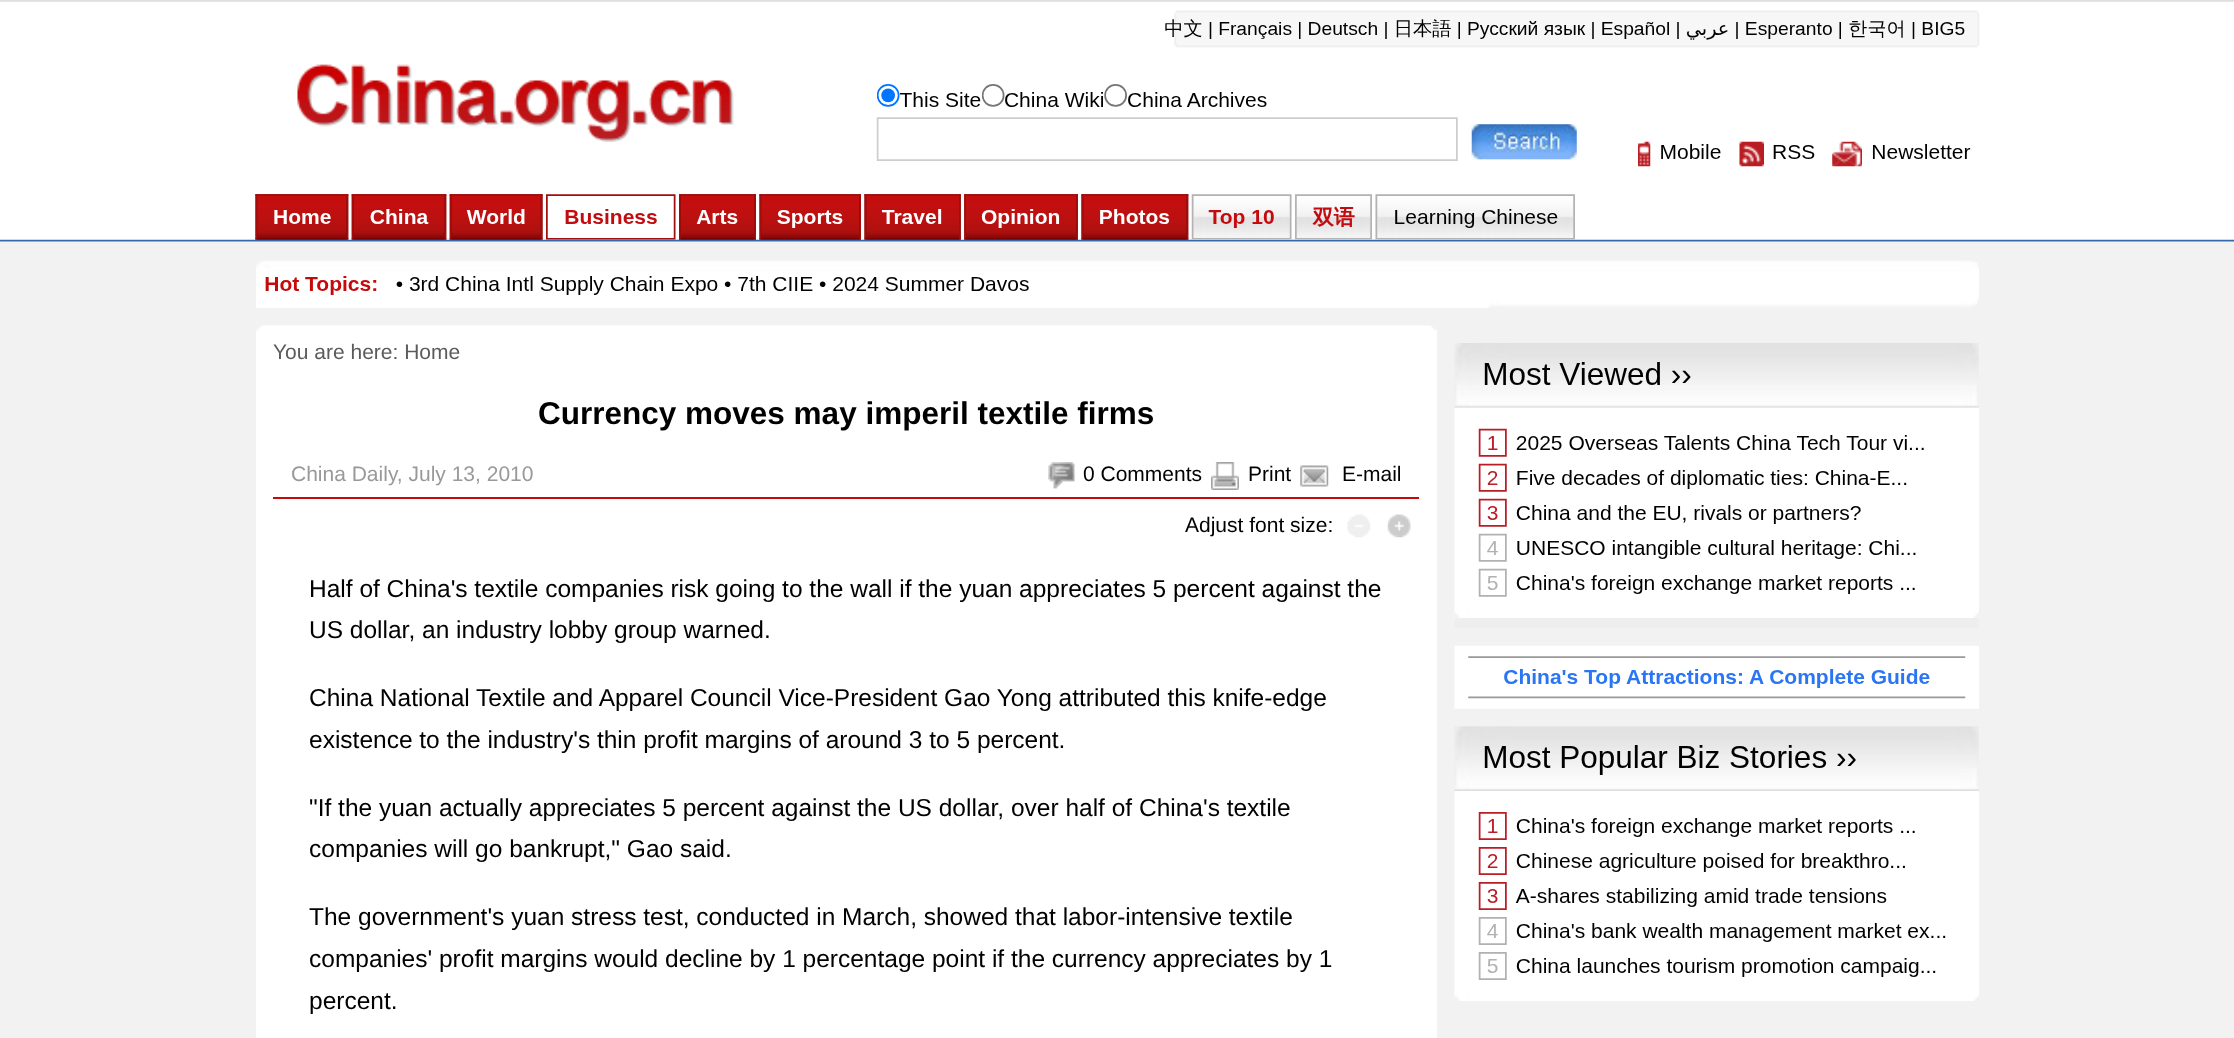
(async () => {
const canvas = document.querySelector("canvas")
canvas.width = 2234
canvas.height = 1038
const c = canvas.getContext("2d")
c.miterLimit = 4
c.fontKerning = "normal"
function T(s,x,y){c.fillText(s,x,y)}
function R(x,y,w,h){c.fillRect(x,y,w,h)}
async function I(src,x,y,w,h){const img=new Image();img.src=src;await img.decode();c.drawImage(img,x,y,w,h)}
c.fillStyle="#f2f2f2"
R(0,0,2234,1038)
await I("1.png",0,0,2234,242)
await I("2.png",256,260,1723,48)
c.fillStyle="#fff"
R(256,326,1181,712)
await I("3.png",256,325,1181,6)
c.font="21px Liberation Sans"
c.fillStyle="#5b5b5b"
T("You are here: Home",273,359)
c.font="bold 31.5px Liberation Sans"
c.fillStyle="#000"
T("Currency moves may imperil textile firms",538,424)
c.fillStyle="#c50a0c"
R(273,497,1146,2)
c.font="21px Liberation Sans"
c.fillStyle="#999"
T("China Daily, July 13, 2010",291,481)
await I("4.png",1048,462,27,27)
c.fillStyle="#000"
T("0 Comments",1083,481)
await I("5.png",1211,462,28,28)
T("Print",1248,481)
await I("6.png",1300,465,29,22)
T("E-mail",1342,481)
T("Adjust font size:",1185,532)
await I("7.png",1347,514,24,24)
await I("8.png",1387,514,24,24)
c.font="24.5px Liberation Sans"
T("Half of China's textile companies risk going to the wall if the yuan appreciates 5 percent against the",309,597)
T("US dollar, an industry lobby group warned.",309,638)
T("China National Textile and Apparel Council Vice-President Gao Yong attributed this knife-edge",309,706)
T("existence to the industry's thin profit margins of around 3 to 5 percent.",309,748)
T("\"If the yuan actually appreciates 5 percent against the US dollar, over half of China's textile",309,816)
T("companies will go bankrupt,\" Gao said.",309,857)
T("The government's yuan stress test, conducted in March, showed that labor-intensive textile",309,925)
T("companies' profit margins would decline by 1 percentage point if the currency appreciates by 1",309,967)
T("percent.",309,1009)
await I("9.png",1454,343,525,658)
})()
